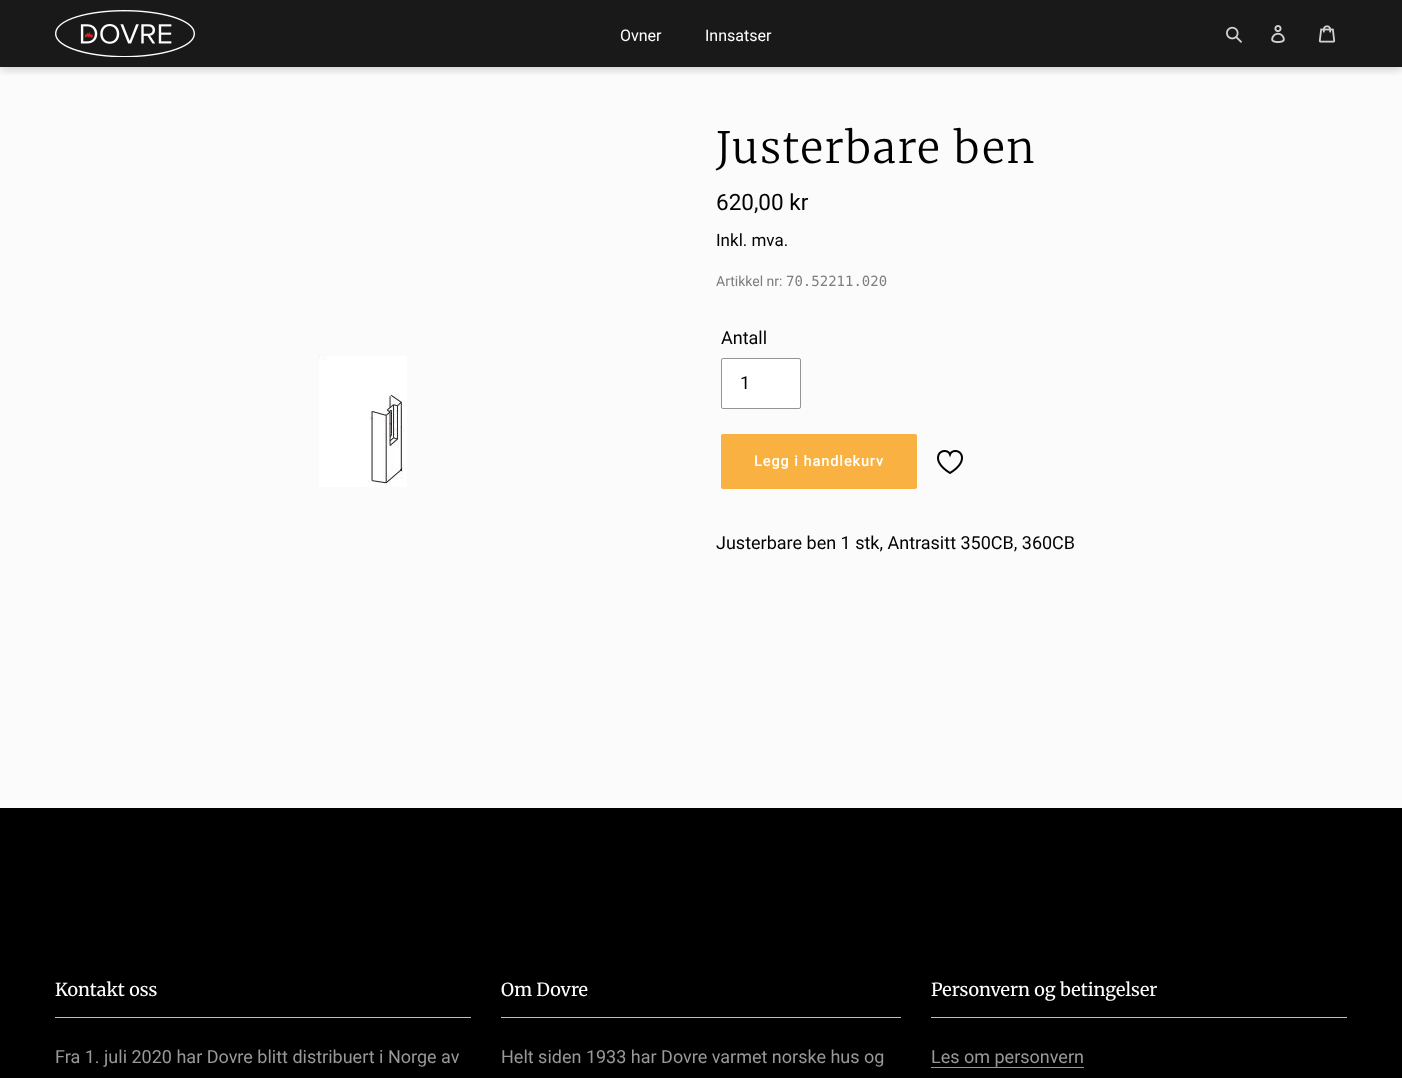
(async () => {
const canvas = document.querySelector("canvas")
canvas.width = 1402
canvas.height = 1078
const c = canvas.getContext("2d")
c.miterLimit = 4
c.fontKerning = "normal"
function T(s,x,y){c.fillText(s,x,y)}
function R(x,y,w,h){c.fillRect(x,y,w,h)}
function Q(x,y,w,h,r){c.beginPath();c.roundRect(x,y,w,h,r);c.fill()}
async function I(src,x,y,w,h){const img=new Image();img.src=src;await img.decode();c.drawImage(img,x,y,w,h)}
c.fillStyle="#fbfbfb"
R(0,0,1402,1078)
c.fillStyle="#191919"
R(0,0,1402,67)
c.save()
c.beginPath()
c.rect(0,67,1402,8)
c.clip()
c.fillStyle="#00000033"
c.filter="blur(5px)"
c.beginPath()
c.rect(0,2,1402,67)
c.fill()
c.filter="none"
c.restore()
await I("1.png",55,10,140,47)
c.font="16px Roboto"
c.fillStyle="#fff"
T("Ovner",620,41)
T("Innsatser",705,41)
await I("2.png",1226,26,16,17)
await I("3.png",1271,25,14,18)
await I("4.png",1318,25,18,18)
await I("5.png",319,356,88,131)
c.letterSpacing="2.1px"
c.font="300 43px Merriweather"
c.fillStyle="#000"
T("Justerbare ben",716,163)
c.letterSpacing="0px"
c.font="22.5px Roboto"
T("620,00 kr",716,210)
c.font="17px Roboto"
T("Inkl. mva.",716,246)
c.font="14px Roboto"
c.fillStyle="#7e7e7e"
T("Artikkel nr:",716,286)
c.font="14px DejaVu Sans Mono"
T("70.52211.020",786,286)
c.font="18px Roboto"
c.fillStyle="#000"
T("Antall",721,344)
c.fillStyle="#fff"
c.beginPath()
c.roundRect(721.5,358.5,79,50,1.5)
c.fill()
c.strokeStyle="#949494"
c.stroke()
c.fillStyle="#000"
T("1",740,389)
c.fillStyle="#f9b241"
Q(721,434,196,55,2)
c.letterSpacing="1.1px"
c.font="bold 14.25px Roboto"
c.fillStyle="#fff"
T("Legg i handlekurv",754,466)
await I("6.png",937,450,26,25)
c.letterSpacing="0px"
c.font="18px Roboto"
c.fillStyle="#000"
T("Justerbare ben 1 stk, Antrasitt 350CB, 360CB",716,549)
R(0,808,1402,270)
c.fillStyle="#bfbdc9"
R(55,1017,416,1)
c.font="18px Merriweather"
c.fillStyle="#fff"
T("Kontakt oss",55,996)
c.font="18px Roboto"
c.fillStyle="#999"
T("Fra 1. juli 2020 har Dovre blitt distribuert i Norge av",55,1063)
c.fillStyle="#bfbdc9"
R(501,1017,400,1)
c.font="18px Merriweather"
c.fillStyle="#fff"
T("Om Dovre",501,996)
c.font="18px Roboto"
c.fillStyle="#999"
T("Helt siden 1933 har Dovre varmet norske hus og",501,1063)
c.fillStyle="#bfbdc9"
R(931,1017,416,1)
c.font="18px Merriweather"
c.fillStyle="#fff"
T("Personvern og betingelser",931,996)
c.font="18px Roboto"
c.fillStyle="#999"
T("Les om personvern",931,1063)
R(931,1067,153,1)
})()
